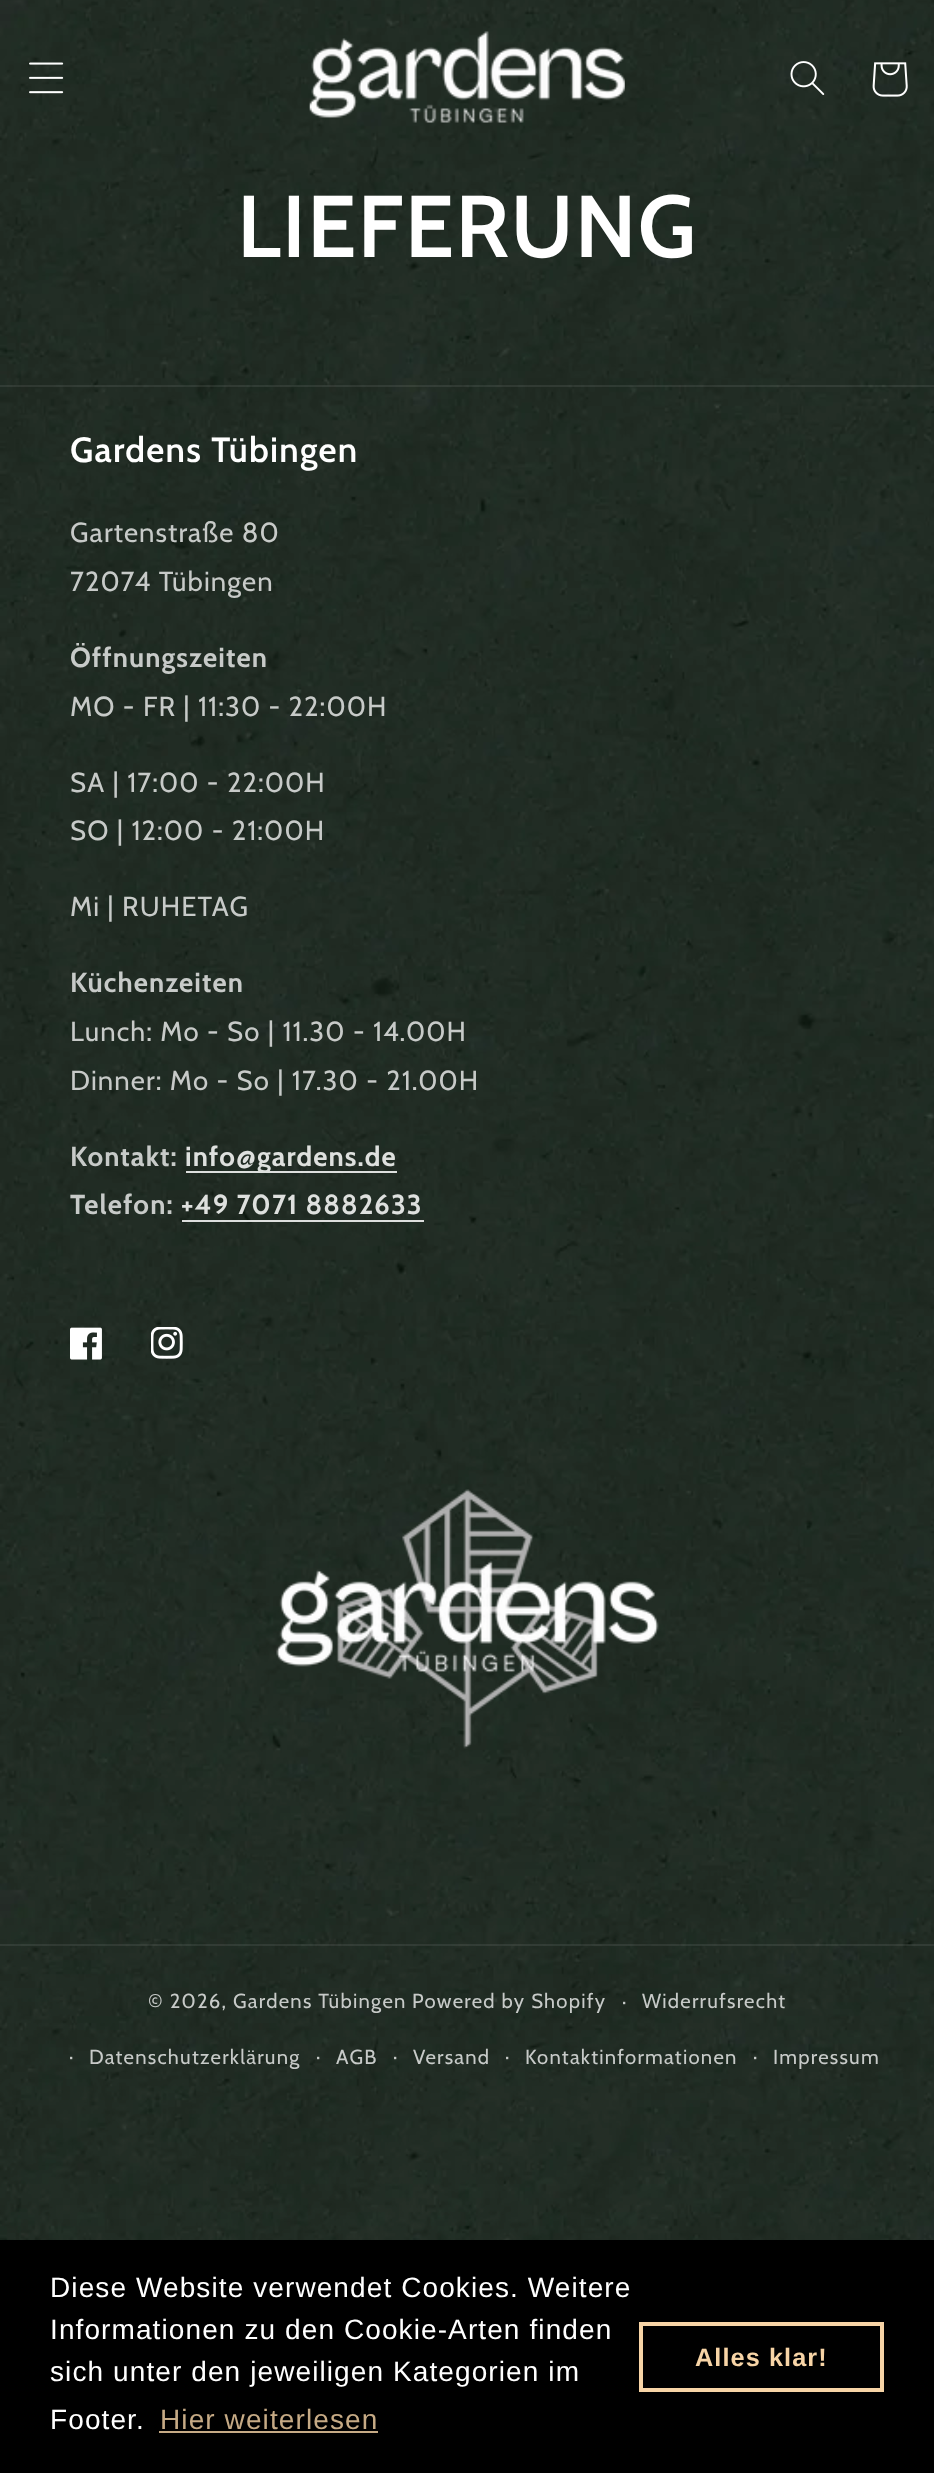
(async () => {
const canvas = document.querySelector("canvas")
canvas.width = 934
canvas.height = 2473
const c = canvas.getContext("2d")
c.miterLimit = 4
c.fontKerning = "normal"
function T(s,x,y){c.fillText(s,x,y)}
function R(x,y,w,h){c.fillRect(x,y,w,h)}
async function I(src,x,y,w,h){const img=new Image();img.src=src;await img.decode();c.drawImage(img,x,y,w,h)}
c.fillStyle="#fff"
R(0,0,934,2473)
await I("1.png",0,0,934,2240)
await I("2.png",29,62,35,32)
await I("3.png",309,31,316,92)
await I("4.png",790,61,35,34)
await I("5.png",872,62,36,35)
c.letterSpacing="1.25px"
c.font="600 87.5px Cabin"
T("LIEFERUNG",237,257)
c.fillStyle="#ffffff14"
R(0,385,934,2)
c.font="600 35px Cabin"
c.fillStyle="#fff"
T("Gardens Tübingen",70,462)
c.letterSpacing="1.1px"
c.font="27.5px Cabin"
c.fillStyle="#c7cac8"
T("Gartenstraße 80",70,542)
T("72074 Tübingen",70,591)
c.font="bold 27.5px Cabin"
T("Öffnungszeiten",70,667)
c.font="27.5px Cabin"
T("MO - FR | 11:30 - 22:00H",70,716)
T("SA | 17:00 - 22:00H",70,792)
T("SO | 12:00 - 21:00H",70,840)
T("Mi | RUHETAG",70,916)
c.font="bold 27.5px Cabin"
T("Küchenzeiten",70,992)
c.font="27.5px Cabin"
T("Lunch: Mo - So | 11.30 - 14.00H",70,1041)
T("Dinner: Mo - So | 17.30 - 21.00H",70,1090)
c.font="bold 27.5px Cabin"
T("Kontakt:",70,1166)
c.fillStyle="#ffffffd9"
R(186,1171,211,2)
c.fillStyle="#dee0de"
T("info@gardens.de",185,1166)
c.fillStyle="#c7cac8"
T("Telefon:",70,1214)
c.fillStyle="#dee0de"
T("+49 7071 8882633",181,1214)
c.fillStyle="#ffffffd9"
R(182,1220,242,2)
await I("6.png",70,1327,32,33)
await I("7.png",151,1327,32,32)
await I("8.png",276,1489,383,260)
c.fillStyle="#ffffff14"
R(0,1944,934,2)
c.letterSpacing="1.25px"
c.font="18px Cabin"
c.fillStyle="#c7cac8"
T("·",622,2008)
c.font="20.25px Cabin"
T("Widerrufsrecht",642,2008)
c.font="18px Cabin"
T("·",69,2063)
c.font="20.25px Cabin"
T("Datenschutzerklärung",89,2064)
c.font="18px Cabin"
T("·",316,2063)
c.font="20.25px Cabin"
T("AGB",336,2064)
c.font="18px Cabin"
T("·",393,2063)
c.font="20.25px Cabin"
T("Versand",413,2064)
c.font="18px Cabin"
T("·",505,2063)
c.font="20.25px Cabin"
T("Kontaktinformationen",525,2064)
c.font="18px Cabin"
T("·",753,2063)
c.font="20.25px Cabin"
T("Impressum",773,2064)
T("© 2026,",148,2008)
T("Gardens Tübingen",233,2008)
T("Powered by Shopify",412,2008)
c.fillStyle="#000"
R(0,2240,934,233)
c.letterSpacing="1.1px"
c.font="28px Liberation Sans"
c.fillStyle="#fff"
T("Diese Website verwendet Cookies. Weitere",50,2297)
T("Informationen zu den Cookie-Arten finden",50,2339)
T("sich unter den jeweiligen Kategorien im",50,2381)
T("Footer.",50,2429)
c.fillStyle="#c6aa85"
T("Hier weiterlesen",160,2429)
R(159,2431,219,2)
c.strokeStyle="#f7d4a6"
c.lineWidth=4
c.strokeRect(641,2324,241,66)
c.font="bold 25.25px Liberation Sans"
c.fillStyle="#f7d4a6"
T("Alles klar!",695,2366)
})()
